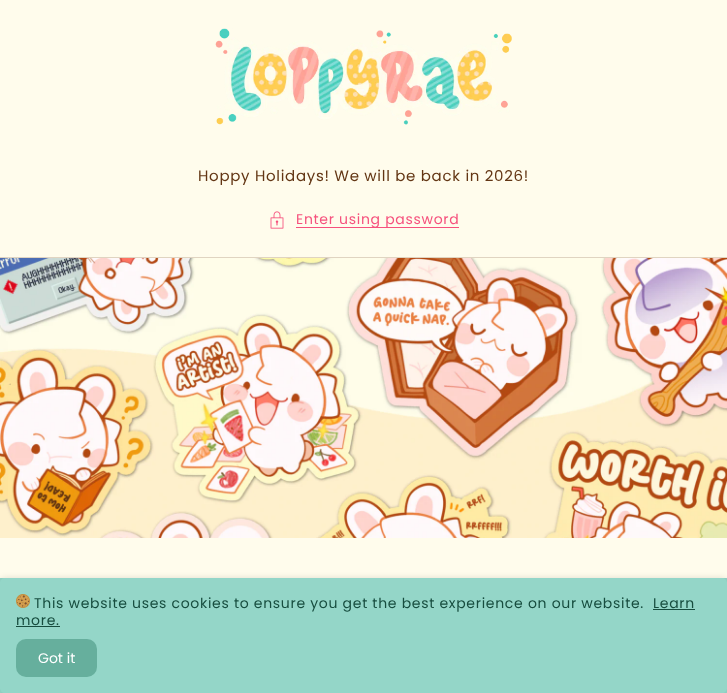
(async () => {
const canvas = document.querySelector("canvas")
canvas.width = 727
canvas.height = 693
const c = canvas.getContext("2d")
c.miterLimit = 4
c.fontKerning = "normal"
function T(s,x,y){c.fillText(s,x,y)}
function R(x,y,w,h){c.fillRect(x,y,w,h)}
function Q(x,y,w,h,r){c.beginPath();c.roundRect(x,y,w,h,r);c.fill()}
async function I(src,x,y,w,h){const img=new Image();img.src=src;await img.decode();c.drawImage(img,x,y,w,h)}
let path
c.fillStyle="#fffcec"
R(0,0,727,693)
await I("1.png",215,28,297,97)
c.letterSpacing="0.7px"
c.font="15px Poppins"
c.fillStyle="#633614"
T("Hoppy Holidays! We will be back in 2026!",198,181)
await I("2.png",270,211,14,18)
c.fillStyle="#f6517e"
R(296,227,163,1)
c.font="14px Poppins"
c.fillStyle="#f6517d"
T("Enter using password",296,224)
c.fillStyle="#e0d4c1"
R(0,257,727,1)
await I("3.png",0,258,727,280)
c.fillStyle="#94d6c8"
R(0,578,727,115)
c.save()
path = new Path2D("M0 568h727v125h-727zm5 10h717c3 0 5 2 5 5v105c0 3-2 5-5 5h-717c-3 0-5-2-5-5v-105c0-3 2-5 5-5z")
c.clip(path,"evenodd")
c.fillStyle="#0000001f"
c.filter="blur(3px)"
c.beginPath()
c.roundRect(0,578,727,115,5)
c.fill()
c.filter="none"
c.restore()
await I("4.png",16,594,14,14)
c.fillStyle="#174d3f"
T("This website uses cookies to ensure you get the best experience on our website.",34,608)
T("Learn",653,608)
R(653,609,42,1)
T("more.",16,625)
R(16,626,44,1)
c.fillStyle="#66af9d"
Q(16,639,81,38,10)
c.letterSpacing="0px"
c.fillStyle="#fff"
T("Got it",38,663)
})()
